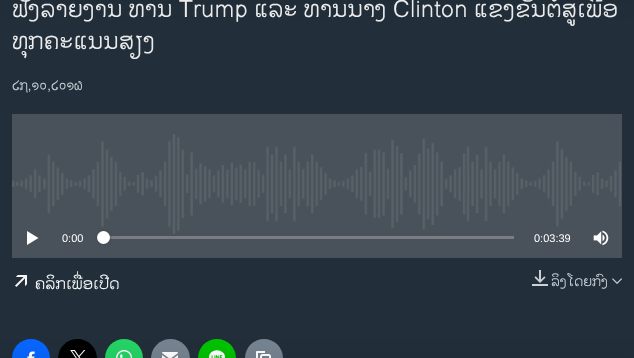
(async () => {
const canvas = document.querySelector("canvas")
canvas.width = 634
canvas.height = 358
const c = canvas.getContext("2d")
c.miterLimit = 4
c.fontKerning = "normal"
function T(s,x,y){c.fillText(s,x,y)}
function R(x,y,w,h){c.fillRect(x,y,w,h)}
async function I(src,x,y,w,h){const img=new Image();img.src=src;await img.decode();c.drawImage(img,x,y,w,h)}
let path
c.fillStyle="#222f3a"
R(0,0,634,358)
c.fillStyle="#0000001a"
c.filter="blur(10px)"
c.beginPath()
c.rect(0,-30,634,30)
c.fill()
c.filter="none"
c.fillStyle="#0866ff"
c.beginPath()
c.arc(31,358,19,0,7)
c.fill()
await I("6.png",27,351,8,7)
c.fillStyle="#000"
c.beginPath()
c.arc(77.5,358.5,19.5,0,7)
c.fill()
await I("7.png",70,350,16,8)
c.fillStyle="#25d366"
c.beginPath()
c.arc(124,358,19,0,7)
c.fill()
await I("8.png",116,350,16,8)
c.fillStyle="#768492"
c.beginPath()
c.arc(170.5,358.5,19.5,0,7)
c.fill()
await I("9.png",162,352,16,6)
c.fillStyle="#00c300"
c.beginPath()
c.arc(217,358,19,0,7)
c.fill()
await I("10.png",209,350,16,8)
c.fillStyle="#768492"
c.beginPath()
c.arc(264,358,19,0,7)
c.fill()
await I("11.png",256,351,15,7)
c.fillStyle="#0000001a"
c.filter="blur(10px)"
c.beginPath()
c.rect(0,358,634,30)
c.fill()
c.filter="none"
c.font="24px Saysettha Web"
c.fillStyle="#ebebeb"
T("ຟັງລາຍງານ ທ່ານ Trump ແລະ ທ່ານນາງ Clinton ແຂ່ງຂັນຕໍ່ສູ້ເພື່ອ",12,17)
T("ທຸກຄະແນນສຽງ",12,49)
c.font="14px Saysettha Web"
c.fillStyle="#cbd1d6"
T("໒໗,໑໐,໒໐໑໖",12,90)
c.fillStyle="#49525a"
R(12,114,610,144)
await I("1.png",12,134,609,100)
c.fillStyle="#fff"
path = new Path2D("M27 245l11.5-7l-11.5-7z")
c.fill(path)
c.font="11px Liberation Sans"
T("0:00",62,242)
c.fillStyle="#777d83"
R(103,236,411,3)
c.fillStyle="#414144"
c.filter="blur(1.5px)"
c.beginPath()
c.roundRect(97,231,13,13,6.5)
c.fill()
c.filter="none"
c.fillStyle="#fff"
c.beginPath()
c.arc(103.5,237.5,6.5,0,7)
c.fill()
T("0:03:39",534,242)
await I("2.png",593,230,16,16)
await I("3.png",15,275,12,12)
c.font="16px Saysettha Web"
c.fillStyle="#f6f7f8"
T("ຄລິກເພື່ອເປີດ",35,289)
await I("4.png",532,270,16,16)
c.font="14px Saysettha Web"
c.fillStyle="#cbd1d6"
T("ລິງໂດຍກົງ",551,286)
await I("5.png",612,278,10,6)
})()
